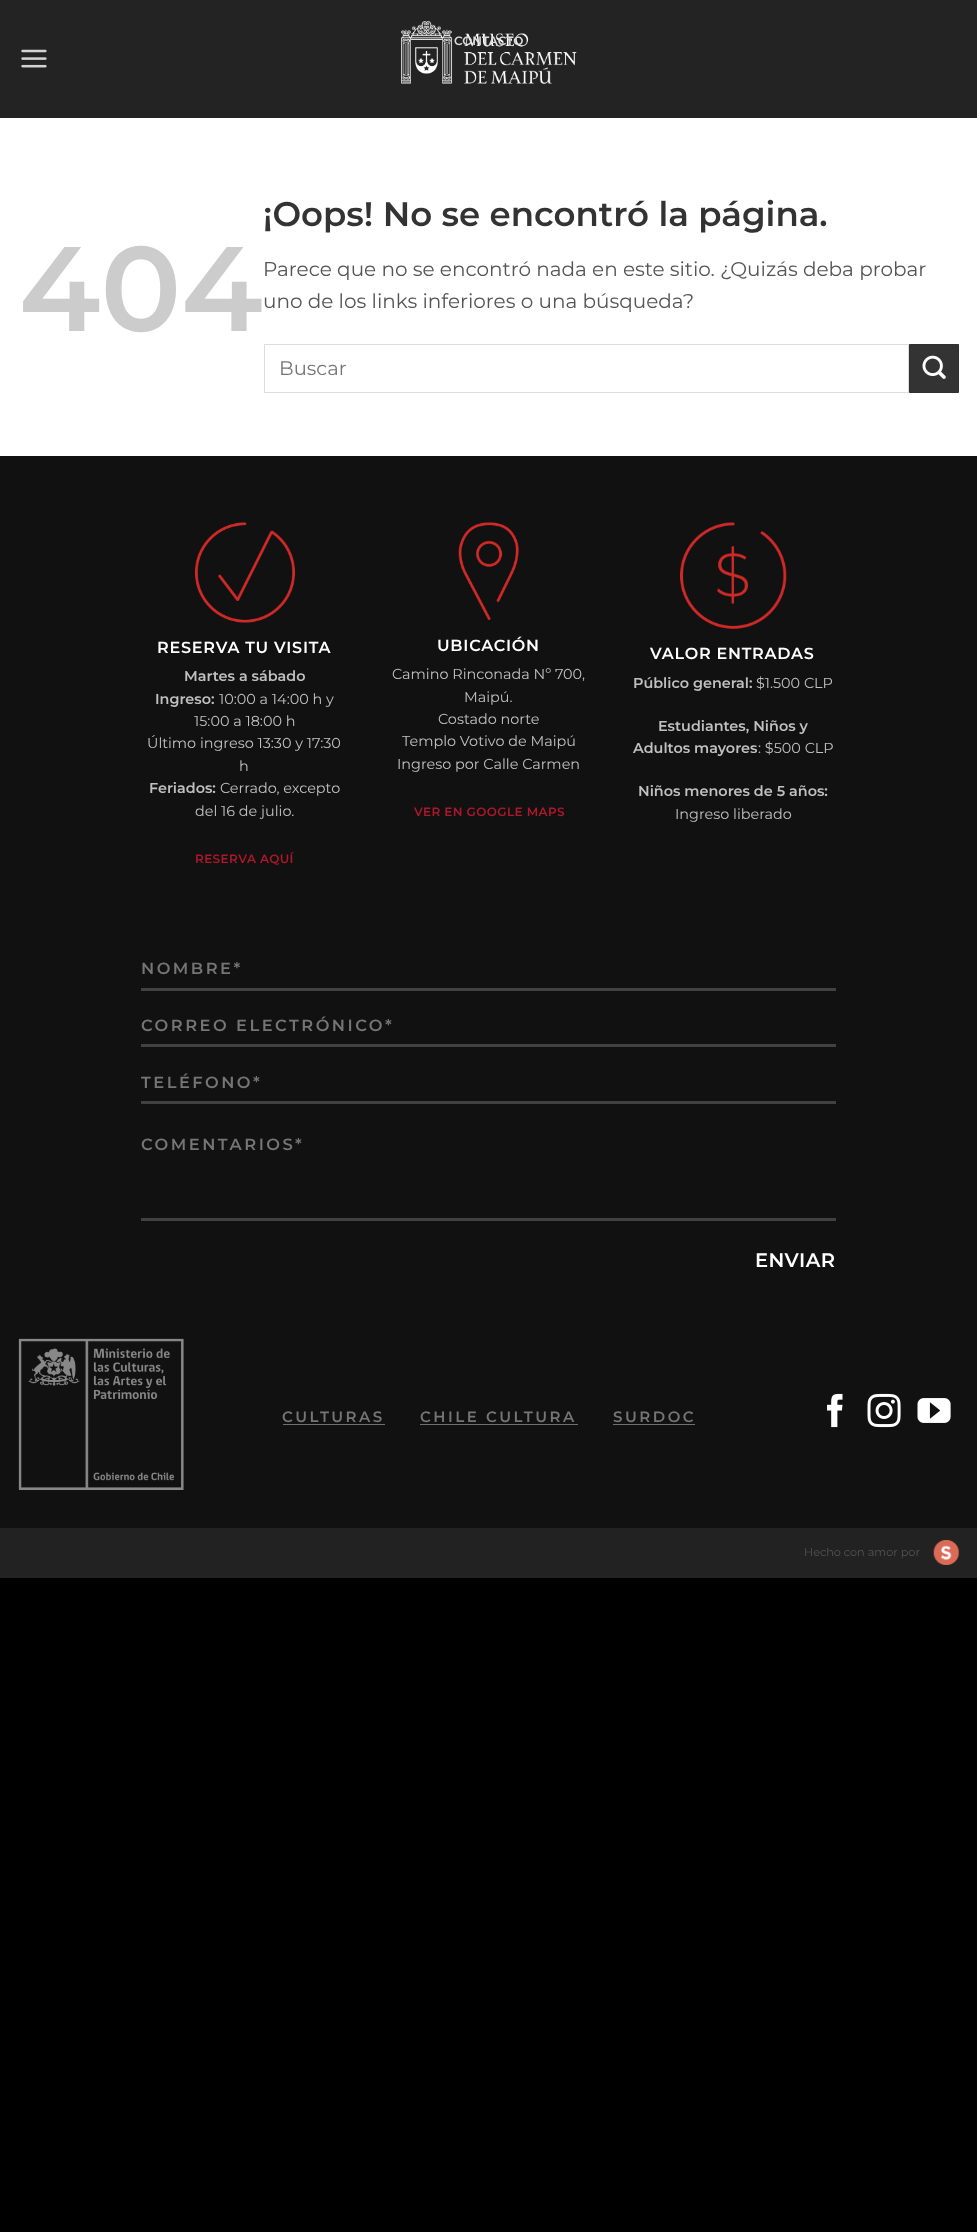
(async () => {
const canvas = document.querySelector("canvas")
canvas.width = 977
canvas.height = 2232
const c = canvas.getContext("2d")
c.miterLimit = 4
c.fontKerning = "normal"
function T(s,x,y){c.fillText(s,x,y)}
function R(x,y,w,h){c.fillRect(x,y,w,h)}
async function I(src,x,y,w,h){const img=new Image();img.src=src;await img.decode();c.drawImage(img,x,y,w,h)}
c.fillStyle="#000"
R(0,0,977,2232)
c.fillStyle="#fff"
R(0,118,977,338)
c.fillStyle="#232323"
R(0,0,977,118)
await I("1.png",21,49,26,19)
await I("2.png",401,21,176,63)
c.font="600 12px Montserrat"
c.fillStyle="#ddd"
T("CONTACTO",454,45)
c.font="600 120px Montserrat"
c.fillStyle="#ccc"
T("404",19,331)
c.font="600 34px Montserrat"
c.fillStyle="#333"
T("¡Oops! No se encontró la página.",263,226)
c.font="20px Montserrat"
c.fillStyle="#555"
T("Parece que no se encontró nada en este sitio. ¿Quizás deba probar",263,276)
T("uno de los links inferiores o una búsqueda?",263,308)
c.strokeStyle="#ddd"
c.strokeRect(264.5,344.5,644,48)
c.font="19.5px Montserrat"
c.fillStyle="#757575"
T("Buscar",279,375)
c.fillStyle="#333"
c.beginPath()
c.rect(909.5,344.5,49,48)
c.fill()
c.strokeStyle="#303030"
c.stroke()
await I("3.png",922,355,24,24)
c.fillStyle="#111"
R(0,456,977,1072)
await I("4.png",195,522,100,101)
c.letterSpacing="0.75px"
c.font="600 16px Montserrat"
c.fillStyle="#fff"
T("RESERVA TU VISITA",157,653)
c.letterSpacing="0px"
c.font="600 14.4px Montserrat"
c.fillStyle="#c0c0c0"
T("Martes a sábado",184,681)
T("Ingreso:",155,704)
c.font="14.4px Montserrat"
T("10:00 a 14:00 h y",219,704)
T("15:00 a 18:00 h",194,726)
T("Último ingreso 13:30 y 17:30",147,748)
T("h",239,771)
c.font="600 14.4px Montserrat"
T("Feriados:",149,793)
c.font="14.4px Montserrat"
T("Cerrado, excepto",220,793)
T("del 16 de julio.",195,816)
c.letterSpacing="0.4px"
c.font="600 12px Montserrat"
c.fillStyle="#ad182d"
T("RESERVA AQUÍ",195,863)
await I("5.png",458,522,61,98)
c.letterSpacing="0.75px"
c.font="600 16px Montserrat"
c.fillStyle="#fff"
T("UBICACIÓN",437,651)
c.letterSpacing="0px"
c.font="14.4px Montserrat"
c.fillStyle="#c0c0c0"
T("Camino Rinconada Nº 700,",392,679)
T("Maipú.",464,702)
T("Costado norte",438,724)
T("Templo Votivo de Maipú",402,746)
T("Ingreso por Calle Carmen",397,769)
c.letterSpacing="0.4px"
c.font="600 12px Montserrat"
c.fillStyle="#ad182d"
T("VER EN GOOGLE MAPS",414,816)
await I("6.png",680,522,107,107)
c.letterSpacing="0.75px"
c.font="600 16px Montserrat"
c.fillStyle="#fff"
T("VALOR ENTRADAS",650,659)
c.letterSpacing="0px"
c.font="600 14.4px Montserrat"
c.fillStyle="#c0c0c0"
T("Público general:",633,688)
c.font="14.4px Montserrat"
T("$1.500 CLP",756,688)
c.font="600 14.4px Montserrat"
T("Estudiantes, Niños y",658,731)
T("Adultos mayores",633,753)
c.font="14.4px Montserrat"
T(": $500 CLP",758,753)
c.font="600 14.4px Montserrat"
T("Niños menores de 5 años:",638,796)
c.font="14.4px Montserrat"
T("Ingreso liberado",675,819)
c.fillStyle="#414141"
R(141,988,695,3)
c.letterSpacing="2.5px"
c.font="600 16.25px Montserrat"
c.fillStyle="#757575"
T("NOMBRE*",141,974)
c.fillStyle="#414141"
R(141,1044,695,3)
c.fillStyle="#757575"
T("CORREO ELECTRÓNICO*",141,1031)
c.fillStyle="#414141"
R(141,1101,695,3)
c.fillStyle="#757575"
T("TELÉFONO*",141,1088)
c.fillStyle="#414141"
R(141,1218,695,3)
c.fillStyle="#757575"
T("COMENTARIOS*",141,1150)
c.letterSpacing="0.5px"
c.font="600 19.5px Montserrat"
c.fillStyle="#fff"
T("ENVIAR",755,1267)
await I("7.png",18,1338,166,152)
c.letterSpacing="2.5px"
c.font="600 15px Montserrat"
c.fillStyle="#757575"
T("CULTURAS",282,1422)
c.fillStyle="#707070"
R(283,1424,102,1)
c.fillStyle="#757575"
T("CHILE CULTURA",420,1422)
c.fillStyle="#707070"
R(420,1424,158,1)
c.fillStyle="#757575"
T("SURDOC",613,1422)
c.fillStyle="#707070"
R(613,1424,82,1)
await I("8.png",827,1393,16,35)
await I("9.png",867,1393,34,35)
await I("10.png",917,1398,34,25)
c.fillStyle="#222"
R(0,1528,977,50)
c.letterSpacing="0px"
c.font="11.25px Montserrat"
c.fillStyle="#555"
T("Hecho con amor por",804,1556)
await I("11.png",933,1540,26,25)
})()
